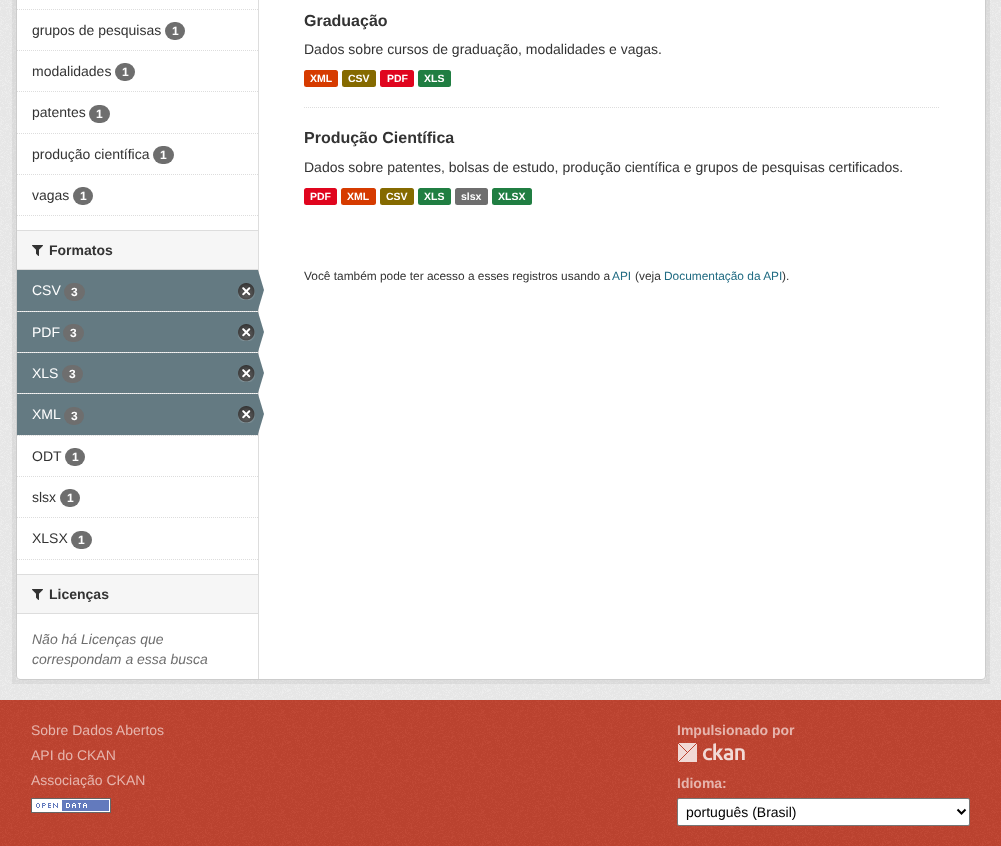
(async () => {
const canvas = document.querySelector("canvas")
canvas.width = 1001
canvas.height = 846
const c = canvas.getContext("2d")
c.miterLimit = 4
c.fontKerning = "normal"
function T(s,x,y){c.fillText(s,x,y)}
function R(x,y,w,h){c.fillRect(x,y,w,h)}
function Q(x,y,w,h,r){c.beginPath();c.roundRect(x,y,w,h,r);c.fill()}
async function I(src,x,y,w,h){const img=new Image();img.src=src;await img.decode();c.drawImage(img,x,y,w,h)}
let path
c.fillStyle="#c14531"
R(0,0,1001,846)
c.fillStyle="#eee"
R(0,0,1001,700)
await I("1.png",0,0,1001,700)
c.strokeStyle="#0000000d"
c.lineWidth=4
c.strokeRect(14,-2,974,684)
c.fillStyle="#fff"
c.beginPath()
c.roundRect(16.5,-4.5,969,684,3.5)
c.fill()
c.strokeStyle="#ccc"
c.lineWidth=1
c.stroke()
path = new Path2D("M17 9.5h241")
c.strokeStyle="#ddd"
c.setLineDash([1,1])
c.stroke(path)
path = new Path2D("M17 50.5h241")
c.stroke(path)
c.font="14px Liberation Sans"
c.fillStyle="#333"
T("grupos de pesquisas",32,35)
c.fillStyle="#6e6e6e"
Q(165,22,20,18,9)
c.font="bold 12px Liberation Sans"
c.fillStyle="#fff"
T("1",172,35)
path = new Path2D("M17 91.5h241")
c.stroke(path)
c.font="14px Liberation Sans"
c.fillStyle="#333"
T("modalidades",32,76)
c.fillStyle="#6e6e6e"
Q(115,63,20,18,9)
c.font="bold 12px Liberation Sans"
c.fillStyle="#fff"
T("1",122,76)
path = new Path2D("M17 133.5h241")
c.stroke(path)
c.font="14px Liberation Sans"
c.fillStyle="#333"
T("patentes",32,117)
c.fillStyle="#6e6e6e"
Q(89,105,21,18,9)
c.font="bold 12px Liberation Sans"
c.fillStyle="#fff"
T("1",96,118)
path = new Path2D("M17 174.5h241")
c.stroke(path)
c.font="14px Liberation Sans"
c.fillStyle="#333"
T("produção científica",32,159)
c.fillStyle="#6e6e6e"
Q(153,146,21,18,9)
c.font="bold 12px Liberation Sans"
c.fillStyle="#fff"
T("1",160,159)
c.font="14px Liberation Sans"
c.fillStyle="#333"
T("vagas",32,200)
c.fillStyle="#6e6e6e"
Q(73,187,20,18,9)
c.font="bold 12px Liberation Sans"
c.fillStyle="#fff"
T("1",80,200)
path = new Path2D("M17 215.5h241")
c.stroke(path)
c.fillStyle="#f6f6f6"
R(17,231,241,38)
c.fillStyle="#ddd"
R(17,230,241,1)
R(17,269,241,1)
await I("2.png",32,245,11,11)
c.font="bold 14px Liberation Sans"
c.fillStyle="#333"
T("Formatos",49,255)
c.fillStyle="#f6f6f6"
R(18,311,239,1)
path = new Path2D("M17 311.5h241")
c.stroke(path)
c.fillStyle="#647a82"
R(17,270,241,41)
c.font="14px Liberation Sans"
c.fillStyle="#fff"
T("CSV",32,295)
c.fillStyle="#6e6e6e"
Q(64,283,21,18,9)
c.font="bold 12px Liberation Sans"
c.fillStyle="#fff"
T("3",71,296)
await I("3.png",238,283,17,17)
c.fillStyle="#ddd"
R(258,0,1,679)
c.fillStyle="#647a82"
path = new Path2D("M258 310v-40l6 20z")
c.fill(path)
c.fillStyle="#f6f6f6"
R(18,352,239,1)
path = new Path2D("M17 352.5h241")
c.stroke(path)
c.fillStyle="#647a82"
R(17,312,241,40)
c.font="14px Liberation Sans"
c.fillStyle="#fff"
T("PDF",32,337)
c.fillStyle="#6e6e6e"
Q(63,324,21,18,9)
c.font="bold 12px Liberation Sans"
c.fillStyle="#fff"
T("3",70,337)
await I("3.png",238,324,17,17)
c.fillStyle="#647a82"
path = new Path2D("M258 352v-40l6 20z")
c.fill(path)
c.fillStyle="#f6f6f6"
R(18,393,239,1)
path = new Path2D("M17 393.5h241")
c.stroke(path)
c.fillStyle="#647a82"
R(17,353,241,40)
c.font="14px Liberation Sans"
c.fillStyle="#fff"
T("XLS",32,378)
c.fillStyle="#6e6e6e"
Q(62,365,21,18,9)
c.font="bold 12px Liberation Sans"
c.fillStyle="#fff"
T("3",69,378)
await I("3.png",238,365,17,17)
c.fillStyle="#647a82"
path = new Path2D("M258 393v-40l6 20z")
c.fill(path)
c.fillStyle="#f6f6f6"
R(18,435,239,1)
path = new Path2D("M17 435.5h241")
c.stroke(path)
c.fillStyle="#647a82"
R(17,394,241,41)
c.font="14px Liberation Sans"
c.fillStyle="#fff"
T("XML",32,419)
c.fillStyle="#6e6e6e"
Q(64,407,20,18,9)
c.font="bold 12px Liberation Sans"
c.fillStyle="#fff"
T("3",71,420)
await I("3.png",238,406,17,17)
c.fillStyle="#647a82"
path = new Path2D("M258 434v-40l6 20z")
c.fill(path)
path = new Path2D("M17 476.5h241")
c.stroke(path)
c.font="14px Liberation Sans"
c.fillStyle="#333"
T("ODT",32,461)
c.fillStyle="#6e6e6e"
Q(65,448,20,18,9)
c.font="bold 12px Liberation Sans"
c.fillStyle="#fff"
T("1",72,461)
path = new Path2D("M17 517.5h241")
c.stroke(path)
c.font="14px Liberation Sans"
c.fillStyle="#333"
T("slsx",32,502)
c.fillStyle="#6e6e6e"
Q(60,489,20,18,9)
c.font="bold 12px Liberation Sans"
c.fillStyle="#fff"
T("1",67,502)
c.font="14px Liberation Sans"
c.fillStyle="#333"
T("XLSX",32,543)
c.fillStyle="#6e6e6e"
Q(71,531,21,18,9)
c.font="bold 12px Liberation Sans"
c.fillStyle="#fff"
T("1",78,544)
path = new Path2D("M17 559.5h241")
c.stroke(path)
c.fillStyle="#f6f6f6"
R(17,575,241,38)
c.fillStyle="#ddd"
R(17,574,241,1)
R(17,613,241,1)
await I("2.png",32,589,11,11)
c.font="bold 14px Liberation Sans"
c.fillStyle="#333"
T("Licenças",49,599)
c.font="italic 14px Liberation Sans"
c.fillStyle="#6e6e6e"
T("Não há Licenças que",32,644)
T("correspondam a essa busca",32,664)
path = new Path2D("M304 107.5h636")
c.stroke(path)
c.font="bold 16px Liberation Sans"
c.fillStyle="#333"
T("Graduação",304,26)
c.font="14px Liberation Sans"
T("Dados sobre cursos de graduação, modalidades e vagas.",304,54)
c.fillStyle="#d63b00"
Q(304,70,34,17,2.5)
c.font="bold 10.5px Liberation Sans"
c.fillStyle="#fff"
T("XML",310,82)
c.fillStyle="#856a00"
Q(342,70,34,17,2.5)
c.fillStyle="#fff"
T("CSV",348,82)
c.fillStyle="#e0051e"
Q(380,70,34,17,2.5)
c.fillStyle="#fff"
T("PDF",387,82)
c.fillStyle="#207e42"
Q(418,70,33,17,2.5)
c.fillStyle="#fff"
T("XLS",424,82)
c.font="bold 16px Liberation Sans"
c.fillStyle="#333"
T("Produção Científica",304,143)
c.font="14px Liberation Sans"
T("Dados sobre patentes, bolsas de estudo, produção científica e grupos de pesquisas certificados.",304,172)
c.fillStyle="#e0051e"
Q(304,188,33,17,2.5)
c.font="bold 10.5px Liberation Sans"
c.fillStyle="#fff"
T("PDF",310,200)
c.fillStyle="#d63b00"
Q(341,188,35,17,2.5)
c.fillStyle="#fff"
T("XML",347,200)
c.fillStyle="#856a00"
Q(380,188,34,17,2.5)
c.fillStyle="#fff"
T("CSV",386,200)
c.fillStyle="#207e42"
Q(418,188,33,17,2.5)
c.fillStyle="#fff"
T("XLS",424,200)
c.fillStyle="#6e6e6e"
Q(455,188,33,17,2.5)
c.fillStyle="#fff"
T("slsx",461,200)
c.fillStyle="#207e42"
Q(492,188,40,17,2.5)
c.fillStyle="#fff"
T("XLSX",498,200)
c.font="11.9px Liberation Sans"
c.fillStyle="#333"
T("Você também pode ter acesso a esses registros usando a",304,280)
c.fillStyle="#206b82"
T("API",612,280)
c.fillStyle="#333"
T("(veja",635,280)
c.fillStyle="#206b82"
T("Documentação da API",664,280)
c.fillStyle="#333"
T(").",782,280)
await I("4.png",0,700,1001,146)
c.font="14px Liberation Sans"
c.fillStyle="#e6b5ad"
T("Sobre Dados Abertos",31,735)
T("API do CKAN",31,760)
T("Associação CKAN",31,785)
await I("5.png",31,798,80,15)
c.font="bold 14px Liberation Sans"
T("Impulsionado por",677,735)
await I("6.png",678,743,67,19)
T("Idioma:",677,788)
c.fillStyle="#fff"
c.beginPath()
c.roundRect(677.5,798.5,292,27,1.5)
c.fill()
c.strokeStyle="#767676"
c.setLineDash([])
c.stroke()
path = new Path2D("M957.5 809.5l4 4l4-4")
c.strokeStyle="#000"
c.lineWidth=2
c.stroke(path)
c.font="14px Liberation Sans"
c.fillStyle="#000"
T("português (Brasil)",686,817)
})()
